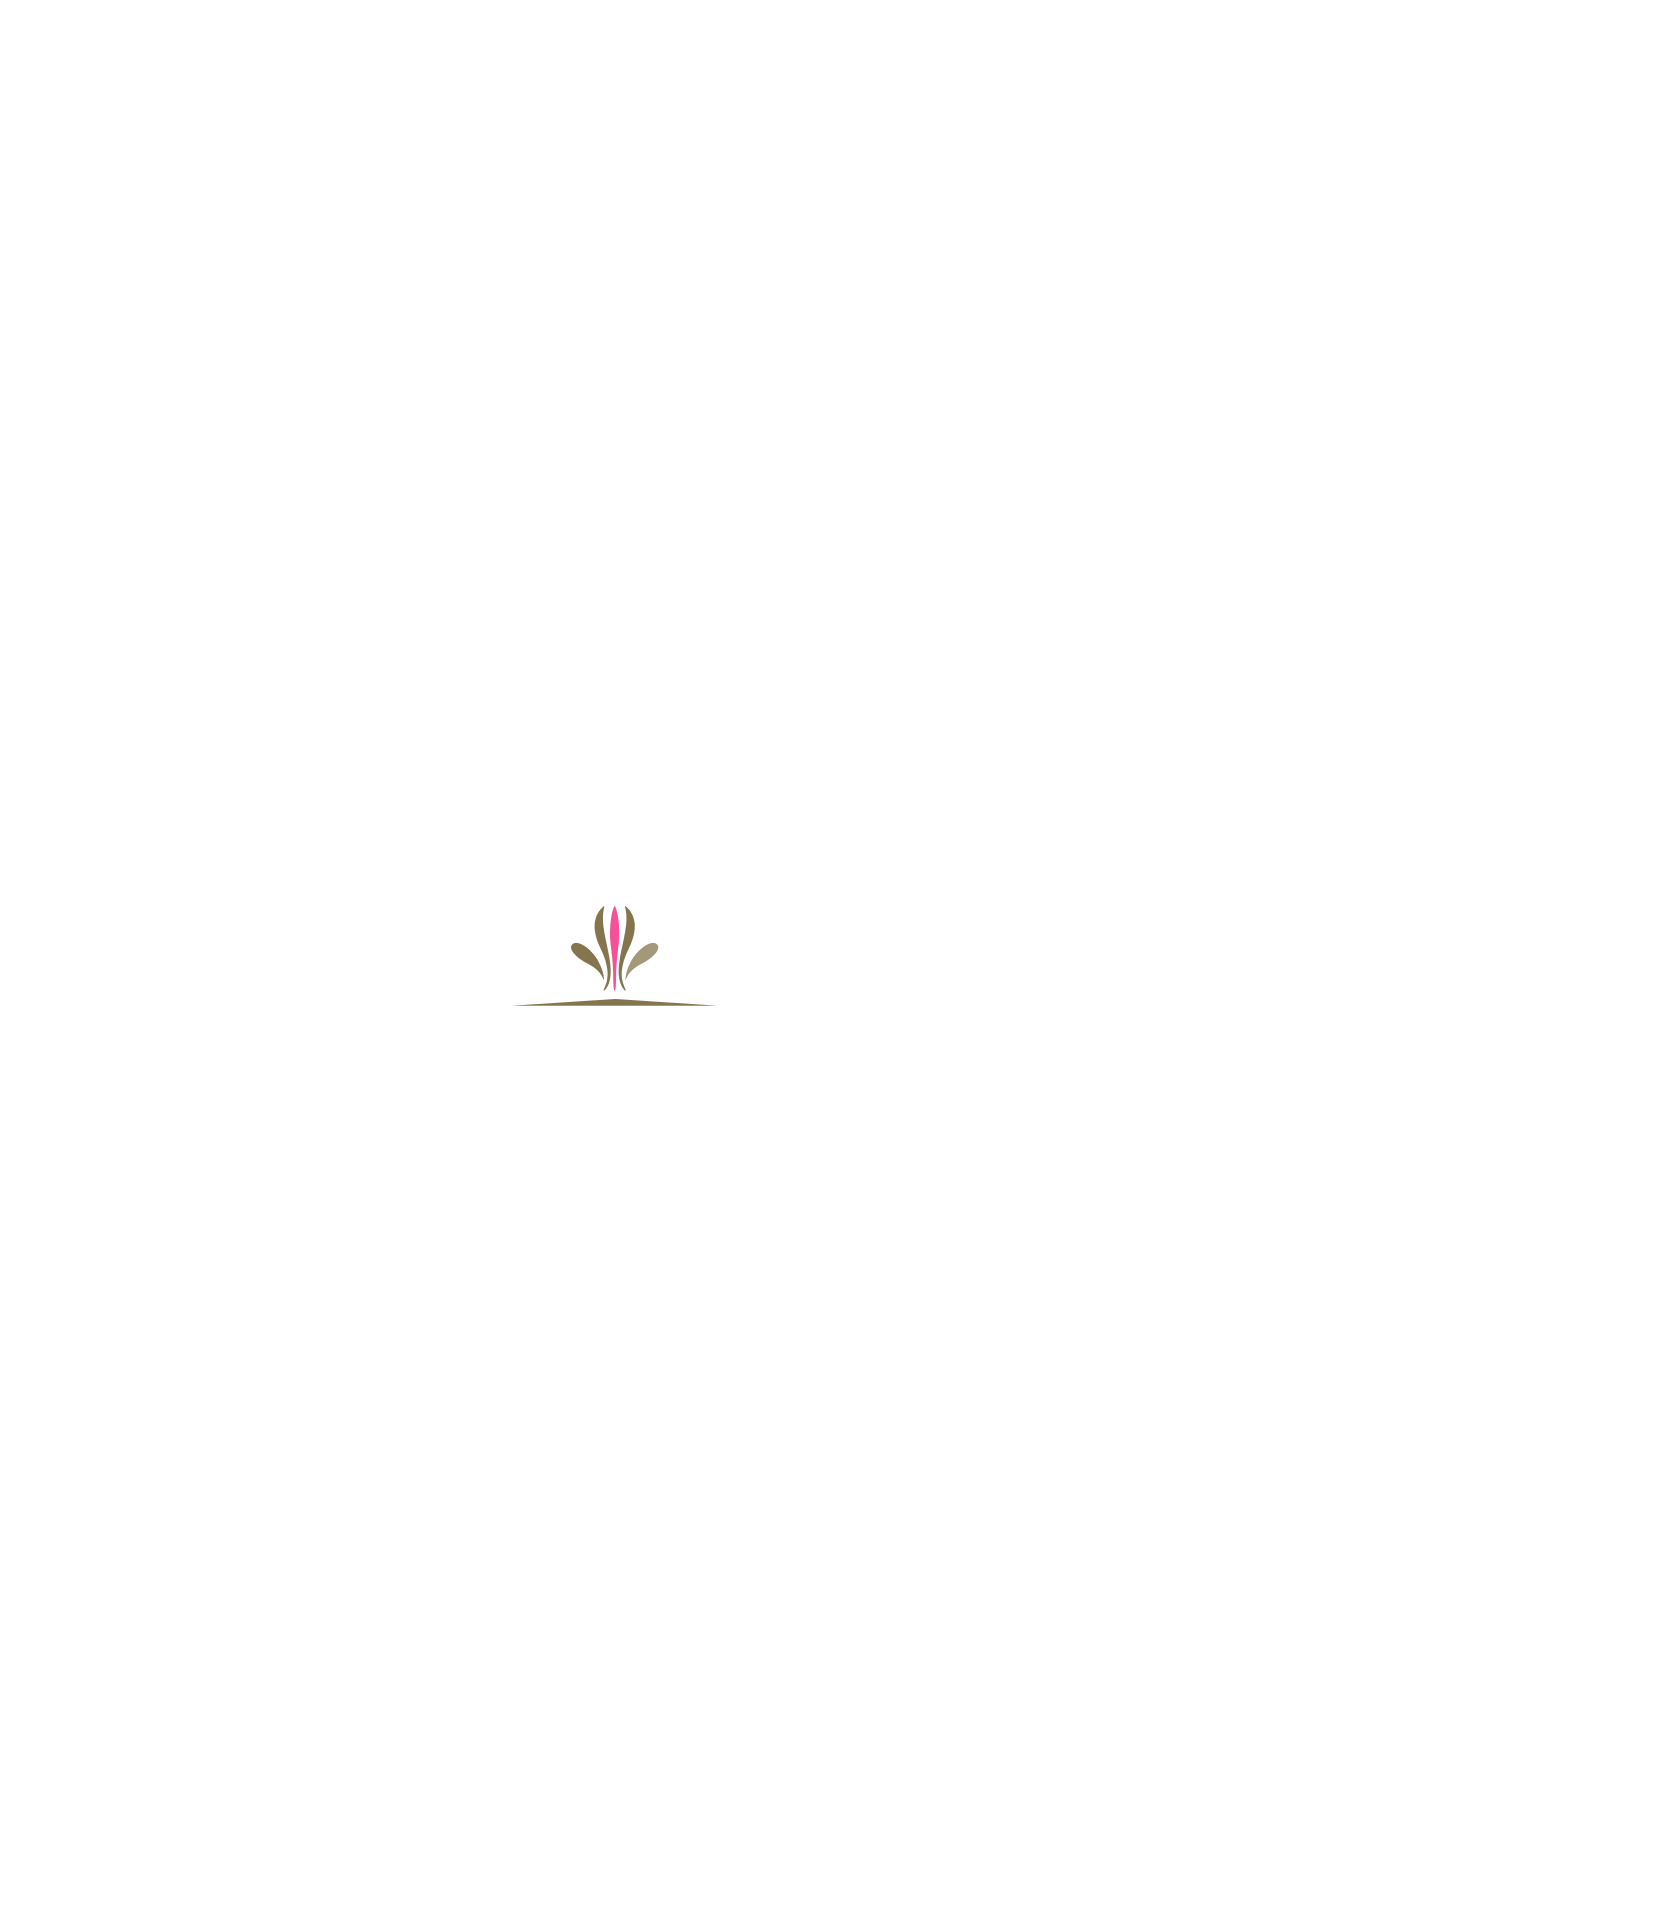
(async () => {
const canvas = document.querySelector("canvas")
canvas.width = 1675
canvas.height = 1921
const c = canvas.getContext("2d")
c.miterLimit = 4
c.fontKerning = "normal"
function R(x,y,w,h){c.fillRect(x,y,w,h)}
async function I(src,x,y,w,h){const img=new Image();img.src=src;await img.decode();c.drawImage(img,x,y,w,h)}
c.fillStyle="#fff"
R(0,0,1675,1921)
await I("1.png",512,906,205,100)
})()
